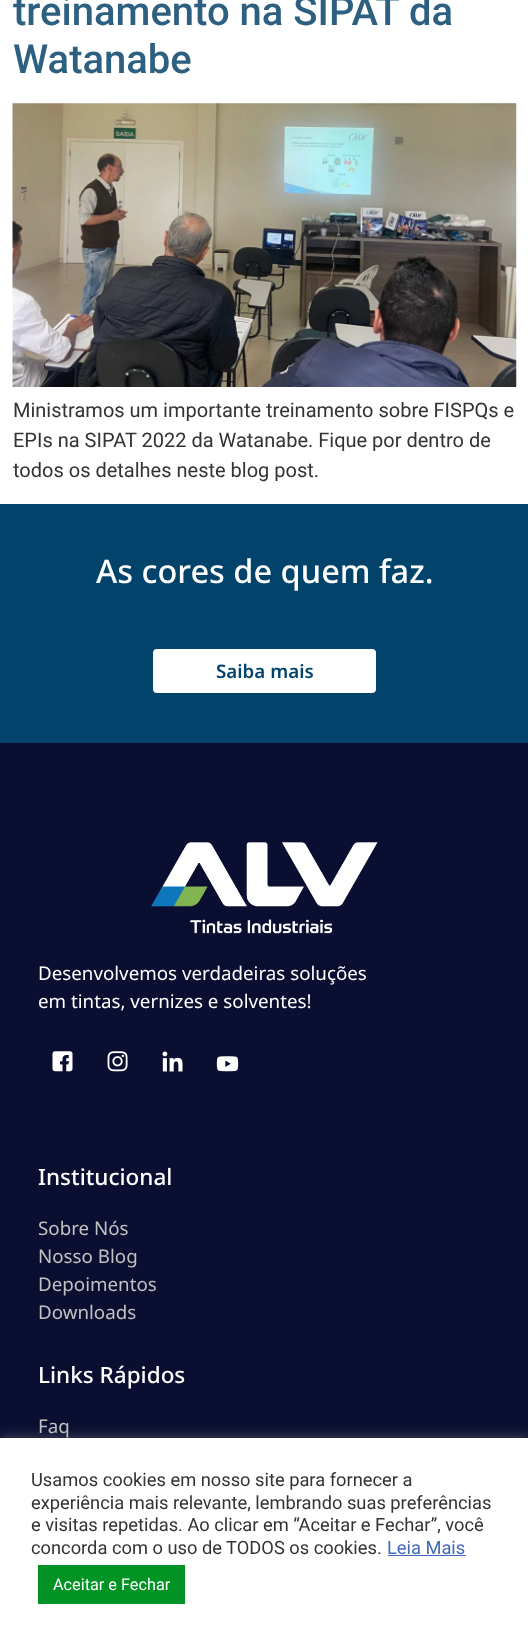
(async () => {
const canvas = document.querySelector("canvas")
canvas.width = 528
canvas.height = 1635
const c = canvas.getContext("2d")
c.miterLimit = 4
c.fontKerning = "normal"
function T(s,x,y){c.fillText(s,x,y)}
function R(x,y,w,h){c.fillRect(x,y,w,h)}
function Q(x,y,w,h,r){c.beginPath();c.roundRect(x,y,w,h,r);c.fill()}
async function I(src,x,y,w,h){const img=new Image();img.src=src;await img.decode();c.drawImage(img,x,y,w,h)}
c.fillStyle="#fff"
R(0,0,528,1635)
c.font="500 40px Roboto"
c.fillStyle="#2d6080"
T("treinamento na SIPAT da",13,25)
T("Watanabe",13,73)
await I("1.png",12,103,505,284)
c.font="20px Roboto"
c.fillStyle="#333"
T("Ministramos um importante treinamento sobre FISPQs e",13,417)
T("EPIs na SIPAT 2022 da Watanabe. Fique por dentro de",13,447)
T("todos os detalhes neste blog post.",13,477)
c.fillStyle="#01436b"
R(0,504,528,239)
c.font="500 32.5px Noto Sans"
c.fillStyle="#fff"
T("As cores de quem faz.",96,583)
Q(153,649,223,44,4)
c.font="600 18.75px Noto Sans"
c.fillStyle="#01436b"
T("Saiba mais",216,678)
c.fillStyle="#0a0f32"
R(0,743,528,695)
await I("2.png",151,842,227,92)
c.font="18.75px Noto Sans"
c.fillStyle="#fff"
T("Desenvolvemos verdadeiras soluções",38,980)
T("em tintas, vernizes e solventes!",38,1008)
await I("3.png",52,1051,21,21)
await I("4.png",107,1051,21,21)
await I("5.png",162,1051,21,21)
await I("6.png",216,1056,23,16)
c.font="500 22.5px Noto Sans"
T("Institucional",38,1185)
c.font="18.75px Noto Sans"
c.fillStyle="#c1c1c1"
T("Sobre Nós",38,1235)
T("Nosso Blog",38,1263)
T("Depoimentos",38,1291)
T("Downloads",38,1319)
c.font="500 22.5px Noto Sans"
c.fillStyle="#fff"
T("Links Rápidos",38,1383)
c.font="18.75px Noto Sans"
c.fillStyle="#c1c1c1"
T("Faq",38,1433)
c.fillStyle="#acabab4d"
c.filter="blur(6px)"
c.beginPath()
c.rect(0,1436,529,198)
c.fill()
c.filter="none"
c.fillStyle="#fff"
R(0,1438,528,197)
c.font="18.3px Roboto"
c.fillStyle="#333"
T("Usamos cookies em nosso site para fornecer a",31,1486)
T("experiência mais relevante, lembrando suas preferências",31,1509)
T("e visitas repetidas. Ao clicar em “Aceitar e Fechar”, você",31,1531)
T("concorda com o uso de TODOS os cookies.",31,1554)
c.fillStyle="#4269bc"
T("Leia Mais",387,1554)
R(388,1555,78,1)
c.fillStyle="#029325"
R(38,1565,147,39)
c.font="16.25px Roboto"
c.fillStyle="#fff"
T("Aceitar e Fechar",53,1590)
})()
